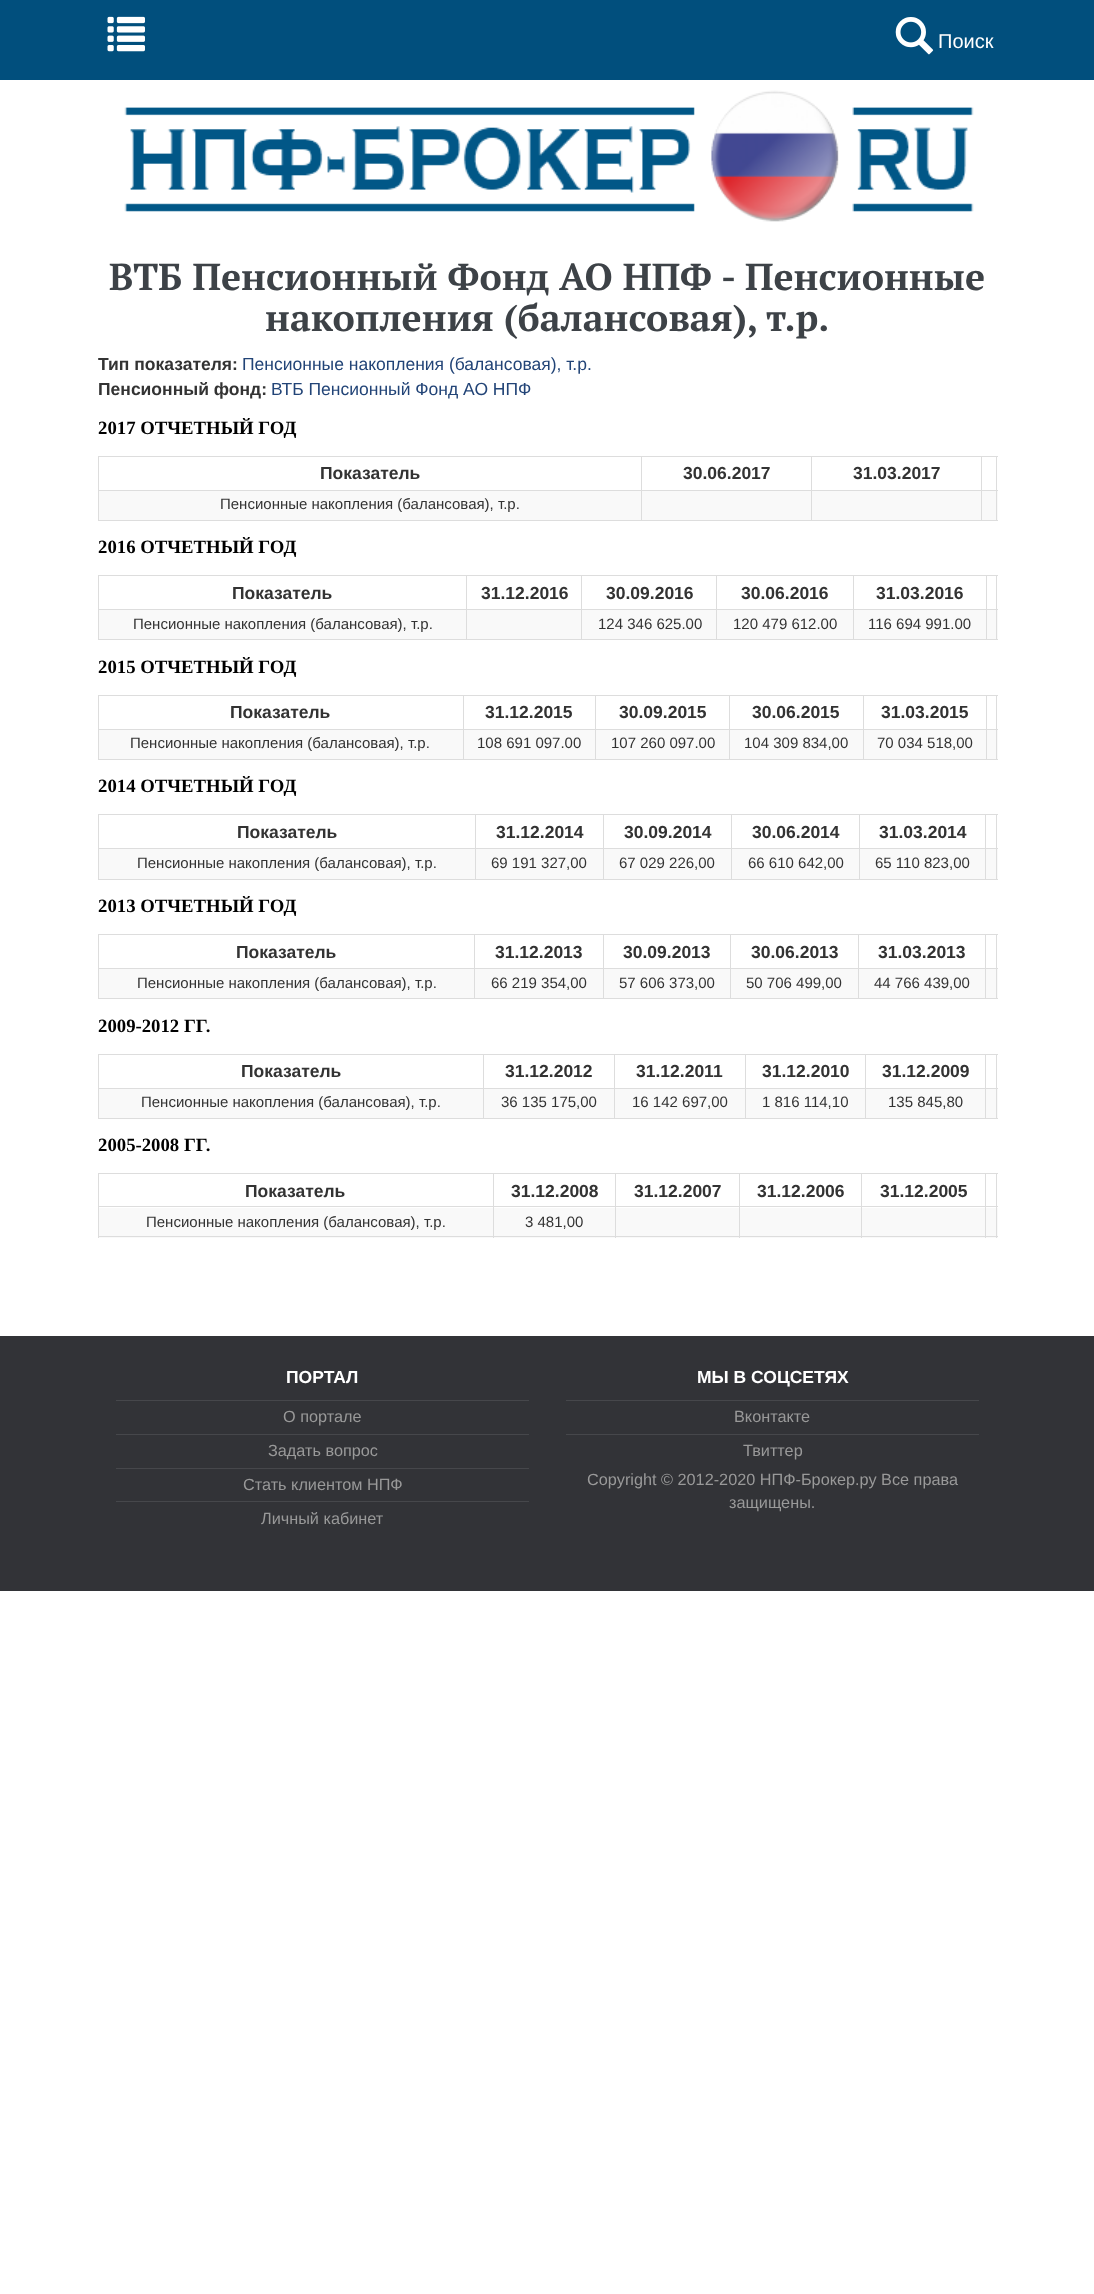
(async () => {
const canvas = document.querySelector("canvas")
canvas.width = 1094
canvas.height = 2294
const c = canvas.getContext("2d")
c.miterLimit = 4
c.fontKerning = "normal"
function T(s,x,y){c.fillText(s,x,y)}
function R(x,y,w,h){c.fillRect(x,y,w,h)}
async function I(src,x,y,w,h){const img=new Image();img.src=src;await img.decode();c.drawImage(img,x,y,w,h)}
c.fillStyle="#fff"
R(0,0,1094,2294)
c.fillStyle="#014f7d"
R(0,0,1094,80)
await I("1.png",107,16,38,36)
await I("2.png",895,17,39,38)
c.font="20px Liberation Sans"
c.fillStyle="#fff"
T("Поиск",938,48)
await I("3.png",124,90,850,132)
c.font="bold 37.5px PT Serif"
c.fillStyle="#3d4247"
T("ВТБ Пенсионный Фонд АО НПФ - Пенсионные",109,290)
T("накопления (балансовая), т.р.",265,331)
c.font="bold 17.5px Liberation Sans"
c.fillStyle="#333"
T("Тип показателя:",98,370)
c.font="17.5px Liberation Sans"
c.fillStyle="#247"
T("Пенсионные накопления (балансовая), т.р.",242,370)
c.font="bold 17.5px Liberation Sans"
c.fillStyle="#333"
T("Пенсионный фонд:",98,395)
c.font="17.5px Liberation Sans"
c.fillStyle="#247"
T("ВТБ Пенсионный Фонд АО НПФ",271,395)
c.font="bold 18.75px Liberation Serif"
c.fillStyle="#000"
T("2017 ОТЧЕТНЫЙ ГОД",98,434)
c.fillStyle="#ddd"
R(981,456,17,1)
R(981,490,17,1)
c.fillStyle="#f9f9f9"
R(982,491,16,29)
c.fillStyle="#ddd"
R(996,490,1,31)
R(981,520,17,1)
R(981,490,1,31)
R(811,490,172,1)
R(981,456,1,35)
R(811,456,172,1)
R(811,520,172,1)
R(811,490,1,31)
R(641,490,172,1)
R(811,456,1,35)
R(641,456,172,1)
c.fillStyle="#f9f9f9"
R(99,491,712,29)
c.fillStyle="#ddd"
R(641,520,172,1)
R(641,490,1,31)
R(98,490,545,1)
R(641,456,1,35)
R(98,456,545,1)
R(98,520,545,1)
R(98,490,1,31)
R(98,456,1,35)
c.font="bold 17.5px Liberation Sans"
c.fillStyle="#333"
T("Показатель",320,479)
T("30.06.2017",683,479)
T("31.03.2017",853,479)
c.fillStyle="#ddd"
R(996,456,1,35)
c.font="15px Liberation Sans"
c.fillStyle="#333"
T("Пенсионные накопления (балансовая), т.р.",220,509)
c.fillStyle="#f9f9f9"
R(812,491,169,29)
c.font="bold 18.75px Liberation Serif"
c.fillStyle="#000"
T("2016 ОТЧЕТНЫЙ ГОД",98,553)
c.fillStyle="#ddd"
R(986,575,12,1)
R(986,609,12,1)
c.fillStyle="#f9f9f9"
R(987,610,11,29)
c.fillStyle="#ddd"
R(996,609,1,31)
R(986,639,12,1)
R(986,609,1,31)
R(853,609,135,1)
R(986,575,1,35)
R(853,575,135,1)
R(853,639,135,1)
R(853,609,1,31)
R(716,609,138,1)
R(853,575,1,35)
R(716,575,138,1)
c.fillStyle="#f9f9f9"
R(99,610,754,29)
c.fillStyle="#ddd"
R(716,639,138,1)
R(716,609,1,31)
R(581,609,137,1)
R(716,575,1,35)
R(581,575,137,1)
R(581,639,137,1)
R(581,609,1,31)
R(466,609,117,1)
R(581,575,1,35)
R(466,575,117,1)
R(466,639,117,1)
R(466,609,1,31)
R(98,609,370,1)
R(466,575,1,35)
R(98,575,370,1)
R(98,639,370,1)
R(98,609,1,31)
R(98,575,1,35)
c.font="bold 17.5px Liberation Sans"
c.fillStyle="#333"
T("Показатель",232,599)
T("31.12.2016",481,599)
T("30.09.2016",606,599)
T("30.06.2016",741,599)
T("31.03.2016",876,599)
c.fillStyle="#ddd"
R(996,575,1,35)
c.font="15px Liberation Sans"
c.fillStyle="#333"
T("Пенсионные накопления (балансовая), т.р.",133,629)
T("124 346 625.00",598,629)
T("120 479 612.00",733,629)
c.fillStyle="#f9f9f9"
R(854,610,132,29)
c.fillStyle="#333"
T("116 694 991.00",868,629)
c.font="bold 18.75px Liberation Serif"
c.fillStyle="#000"
T("2015 ОТЧЕТНЫЙ ГОД",98,673)
c.fillStyle="#ddd"
R(986,695,12,1)
R(986,729,12,1)
c.fillStyle="#f9f9f9"
R(987,730,11,29)
c.fillStyle="#ddd"
R(996,729,1,31)
R(986,759,12,1)
R(986,729,1,31)
R(863,729,125,1)
R(986,695,1,35)
R(863,695,125,1)
R(863,759,125,1)
R(863,729,1,31)
R(729,729,135,1)
R(863,695,1,35)
R(729,695,135,1)
R(729,759,135,1)
R(729,729,1,31)
R(595,729,135,1)
R(729,695,1,35)
R(595,695,135,1)
R(595,759,135,1)
R(595,729,1,31)
R(463,729,133,1)
R(595,695,1,35)
R(463,695,133,1)
R(463,759,133,1)
R(463,729,1,31)
R(98,729,366,1)
R(463,695,1,35)
R(98,695,366,1)
R(98,759,366,1)
R(98,729,1,31)
R(98,695,1,35)
c.font="bold 17.5px Liberation Sans"
c.fillStyle="#333"
T("Показатель",230,718)
T("31.12.2015",485,718)
T("30.09.2015",619,718)
T("30.06.2015",752,718)
T("31.03.2015",881,718)
c.fillStyle="#ddd"
R(996,695,1,35)
c.fillStyle="#f9f9f9"
R(99,730,364,29)
c.font="15px Liberation Sans"
c.fillStyle="#333"
T("Пенсионные накопления (балансовая), т.р.",130,748)
c.fillStyle="#f9f9f9"
R(464,730,131,29)
c.fillStyle="#333"
T("108 691 097.00",477,748)
c.fillStyle="#f9f9f9"
R(596,730,133,29)
c.fillStyle="#333"
T("107 260 097.00",611,748)
c.fillStyle="#f9f9f9"
R(730,730,133,29)
c.fillStyle="#333"
T("104 309 834,00",744,748)
c.fillStyle="#f9f9f9"
R(864,730,122,29)
c.fillStyle="#333"
T("70 034 518,00",877,748)
c.font="bold 18.75px Liberation Serif"
c.fillStyle="#000"
T("2014 ОТЧЕТНЫЙ ГОД",98,792)
c.fillStyle="#ddd"
R(985,814,13,1)
R(985,848,13,1)
c.fillStyle="#f9f9f9"
R(986,849,12,30)
c.fillStyle="#ddd"
R(996,848,1,32)
R(985,879,13,1)
R(985,848,1,32)
R(859,848,127,1)
R(985,814,1,35)
R(859,814,127,1)
R(859,879,127,1)
R(859,848,1,32)
R(731,848,129,1)
R(859,814,1,35)
R(731,814,129,1)
R(731,879,129,1)
R(731,848,1,32)
R(603,848,130,1)
R(731,814,1,35)
R(603,814,130,1)
R(603,879,130,1)
R(603,848,1,32)
R(475,848,129,1)
R(603,814,1,35)
R(475,814,129,1)
R(475,879,129,1)
R(475,848,1,32)
R(98,848,378,1)
R(475,814,1,35)
R(98,814,378,1)
R(98,879,378,1)
R(98,848,1,32)
R(98,814,1,35)
c.font="bold 17.5px Liberation Sans"
c.fillStyle="#333"
T("Показатель",237,838)
T("31.12.2014",496,838)
T("30.09.2014",624,838)
T("30.06.2014",752,838)
T("31.03.2014",879,838)
c.fillStyle="#ddd"
R(996,814,1,35)
c.fillStyle="#f9f9f9"
R(99,849,376,30)
c.font="15px Liberation Sans"
c.fillStyle="#333"
T("Пенсионные накопления (балансовая), т.р.",137,868)
c.fillStyle="#f9f9f9"
R(476,849,127,30)
c.fillStyle="#333"
T("69 191 327,00",491,868)
c.fillStyle="#f9f9f9"
R(604,849,127,30)
c.fillStyle="#333"
T("67 029 226,00",619,868)
c.fillStyle="#f9f9f9"
R(732,849,127,30)
c.fillStyle="#333"
T("66 610 642,00",748,868)
c.fillStyle="#f9f9f9"
R(860,849,125,30)
c.fillStyle="#333"
T("65 110 823,00",875,868)
c.font="bold 18.75px Liberation Serif"
c.fillStyle="#000"
T("2013 ОТЧЕТНЫЙ ГОД",98,912)
c.fillStyle="#ddd"
R(985,934,13,1)
R(985,968,13,1)
c.fillStyle="#f9f9f9"
R(986,969,12,29)
c.fillStyle="#ddd"
R(996,968,1,31)
R(985,998,13,1)
R(985,968,1,31)
R(858,968,128,1)
R(985,934,1,35)
R(858,934,128,1)
R(858,998,128,1)
R(858,968,1,31)
R(730,968,129,1)
R(858,934,1,35)
R(730,934,129,1)
R(730,998,129,1)
R(730,968,1,31)
R(603,968,128,1)
R(730,934,1,35)
R(603,934,128,1)
R(603,998,128,1)
R(603,968,1,31)
R(474,968,130,1)
R(603,934,1,35)
R(474,934,130,1)
R(474,998,130,1)
R(474,968,1,31)
R(98,968,377,1)
R(474,934,1,35)
R(98,934,377,1)
R(98,998,377,1)
R(98,968,1,31)
R(98,934,1,35)
c.font="bold 17.5px Liberation Sans"
c.fillStyle="#333"
T("Показатель",236,958)
T("31.12.2013",495,958)
T("30.09.2013",623,958)
T("30.06.2013",751,958)
T("31.03.2013",878,958)
c.fillStyle="#ddd"
R(996,934,1,35)
c.fillStyle="#f9f9f9"
R(99,969,375,29)
c.font="15px Liberation Sans"
c.fillStyle="#333"
T("Пенсионные накопления (балансовая), т.р.",137,988)
c.fillStyle="#f9f9f9"
R(475,969,128,29)
c.fillStyle="#333"
T("66 219 354,00",491,988)
c.fillStyle="#f9f9f9"
R(604,969,126,29)
c.fillStyle="#333"
T("57 606 373,00",619,988)
c.fillStyle="#f9f9f9"
R(731,969,127,29)
c.fillStyle="#333"
T("50 706 499,00",746,988)
c.fillStyle="#f9f9f9"
R(859,969,126,29)
c.fillStyle="#333"
T("44 766 439,00",874,988)
c.font="bold 18.75px Liberation Serif"
c.fillStyle="#000"
T("2009-2012 ГГ.",98,1032)
c.fillStyle="#ddd"
R(985,1054,13,1)
R(985,1088,13,1)
c.fillStyle="#f9f9f9"
R(986,1089,12,29)
c.fillStyle="#ddd"
R(996,1088,1,31)
R(985,1118,13,1)
R(985,1088,1,31)
R(865,1088,121,1)
R(985,1054,1,35)
R(865,1054,121,1)
R(865,1118,121,1)
R(865,1088,1,31)
R(745,1088,121,1)
R(865,1054,1,35)
R(745,1054,121,1)
R(745,1118,121,1)
R(745,1088,1,31)
R(614,1088,132,1)
R(745,1054,1,35)
R(614,1054,132,1)
R(614,1118,132,1)
R(614,1088,1,31)
R(483,1088,132,1)
R(614,1054,1,35)
R(483,1054,132,1)
R(483,1118,132,1)
R(483,1088,1,31)
R(98,1088,386,1)
R(483,1054,1,35)
R(98,1054,386,1)
R(98,1118,386,1)
R(98,1088,1,31)
R(98,1054,1,35)
c.font="bold 17.5px Liberation Sans"
c.fillStyle="#333"
T("Показатель",241,1077)
T("31.12.2012",505,1077)
T("31.12.2011",636,1077)
T("31.12.2010",762,1077)
T("31.12.2009",882,1077)
c.fillStyle="#ddd"
R(996,1054,1,35)
c.fillStyle="#f9f9f9"
R(99,1089,384,29)
c.font="15px Liberation Sans"
c.fillStyle="#333"
T("Пенсионные накопления (балансовая), т.р.",141,1107)
c.fillStyle="#f9f9f9"
R(484,1089,130,29)
c.fillStyle="#333"
T("36 135 175,00",501,1107)
c.fillStyle="#f9f9f9"
R(615,1089,130,29)
c.fillStyle="#333"
T("16 142 697,00",632,1107)
c.fillStyle="#f9f9f9"
R(746,1089,119,29)
c.fillStyle="#333"
T("1 816 114,10",762,1107)
c.fillStyle="#f9f9f9"
R(866,1089,119,29)
c.fillStyle="#333"
T("135 845,80",888,1107)
c.font="bold 18.75px Liberation Serif"
c.fillStyle="#000"
T("2005-2008 ГГ.",98,1151)
c.fillStyle="#ddd"
R(985,1173,13,1)
R(985,1206,13,1)
c.fillStyle="#f9f9f9"
R(986,1208,12,30)
c.fillStyle="#ddd"
R(996,1206,1,32)
R(985,1236,13,1)
R(985,1206,1,32)
R(861,1206,125,1)
R(985,1173,1,35)
R(861,1173,125,1)
c.fillStyle="#f9f9f9"
R(740,1208,245,30)
c.fillStyle="#ddd"
R(861,1236,125,1)
R(861,1206,1,32)
R(739,1206,124,1)
R(861,1173,1,35)
R(739,1173,124,1)
R(739,1236,124,1)
R(739,1206,1,32)
R(615,1206,125,1)
R(739,1173,1,35)
R(615,1173,125,1)
c.fillStyle="#f9f9f9"
R(616,1208,123,30)
c.fillStyle="#ddd"
R(615,1236,125,1)
R(615,1206,1,32)
R(493,1206,123,1)
R(615,1173,1,35)
R(493,1173,123,1)
c.fillStyle="#f9f9f9"
R(494,1208,121,30)
c.fillStyle="#ddd"
R(493,1236,123,1)
R(493,1206,1,32)
R(98,1206,396,1)
R(493,1173,1,35)
R(98,1173,396,1)
c.fillStyle="#f9f9f9"
R(99,1208,394,30)
c.fillStyle="#ddd"
R(98,1236,396,1)
R(98,1206,1,32)
R(98,1173,1,35)
c.font="bold 17.5px Liberation Sans"
c.fillStyle="#333"
T("Показатель",245,1197)
T("31.12.2008",511,1197)
T("31.12.2007",634,1197)
T("31.12.2006",757,1197)
T("31.12.2005",880,1197)
c.fillStyle="#ddd"
R(996,1173,1,35)
c.font="15px Liberation Sans"
c.fillStyle="#333"
T("Пенсионные накопления (балансовая), т.р.",146,1227)
T("3 481,00",525,1227)
c.fillStyle="#323337"
R(0,1336,1094,255)
c.font="bold 17.5px Liberation Sans"
c.fillStyle="#fff"
T("ПОРТАЛ",286,1383)
c.fillStyle="#46474b"
R(116,1400,413,1)
c.font="16.25px Liberation Sans"
c.fillStyle="#999"
T("О портале",283,1422)
c.fillStyle="#46474b"
R(116,1434,413,1)
c.fillStyle="#999"
T("Задать вопрос",268,1456)
c.fillStyle="#46474b"
R(116,1468,413,1)
c.fillStyle="#999"
T("Стать клиентом НПФ",243,1490)
c.fillStyle="#46474b"
R(116,1501,413,1)
c.fillStyle="#999"
T("Личный кабинет",261,1524)
c.font="bold 17.5px Liberation Sans"
c.fillStyle="#fff"
T("МЫ В СОЦСЕТЯХ",697,1383)
c.fillStyle="#46474b"
R(566,1400,413,1)
c.font="16.25px Liberation Sans"
c.fillStyle="#999"
T("Вконтакте",734,1422)
c.fillStyle="#46474b"
R(566,1434,413,1)
c.fillStyle="#999"
T("Твиттер",743,1456)
T("Copyright © 2012-2020 НПФ-Брокер.ру Все права",587,1485)
T("защищены.",729,1508)
})()
